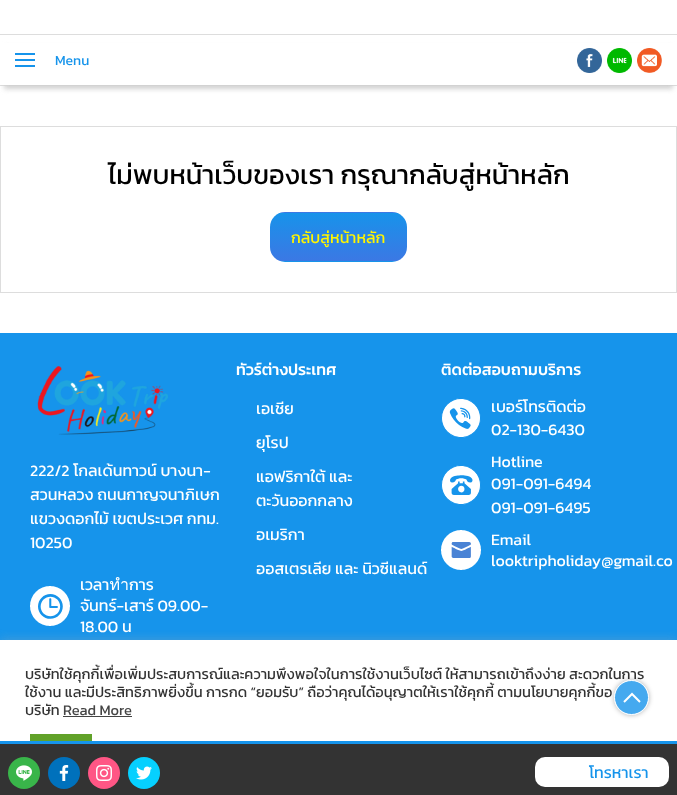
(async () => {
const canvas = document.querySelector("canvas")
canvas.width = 677
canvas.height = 795
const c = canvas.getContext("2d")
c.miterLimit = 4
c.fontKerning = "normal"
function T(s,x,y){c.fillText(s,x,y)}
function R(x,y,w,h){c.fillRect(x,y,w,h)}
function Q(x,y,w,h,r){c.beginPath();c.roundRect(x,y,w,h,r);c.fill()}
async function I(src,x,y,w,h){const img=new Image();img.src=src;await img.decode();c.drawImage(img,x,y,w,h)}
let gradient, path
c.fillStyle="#fff"
R(0,0,677,795)
c.fillStyle="#ddd"
R(0,34,677,1)
R(0,85,677,1)
c.fillStyle="#d1d1d1"
c.filter="blur(2.5px)"
c.beginPath()
c.rect(4,47,669,42)
c.fill()
c.filter="none"
c.fillStyle="#fff"
R(0,43,677,42)
c.fillStyle="#1694eb"
R(15,53,20,2)
R(15,59,20,2)
R(15,65,20,2)
c.font="14px Kanit"
T("Menu",55,65)
await I("1.png",577,48,25,25)
await I("2.png",607,48,25,25)
await I("3.png",637,48,25,25)
c.strokeStyle="#ddd"
c.strokeRect(.5,126.5,676,166)
c.font="27.25px Kanit"
c.fillStyle="#000"
T("ไม่พบหน้าเว็บของเรา กรุณากลับสู่หน้าหลัก",108,184)
c.save()
c.beginPath()
c.roundRect(270,212,137,50,15)
c.clip()
gradient = c.createLinearGradient(339,213,339,165)
gradient.addColorStop(0,"#3b78e4")
gradient.addColorStop(.5,"#2a85e7")
gradient.addColorStop(1,"#1793ea")
c.fillStyle = gradient
R(280,212,117,1)
gradient = c.createLinearGradient(339,261,339,213)
gradient.addColorStop(0,"#3b78e4")
gradient.addColorStop(.5,"#2a85e7")
gradient.addColorStop(1,"#1793ea")
c.fillStyle = gradient
R(270,213,137,48)
gradient = c.createLinearGradient(339,309,339,261)
gradient.addColorStop(0,"#3b78e4")
gradient.addColorStop(.5,"#2a85e7")
gradient.addColorStop(1,"#1793ea")
c.fillStyle = gradient
R(280,261,117,1)
c.restore()
c.font="16px Kanit"
c.fillStyle="#fff500"
T("กลับสู่หน้าหลัก",291,243)
c.fillStyle="#1694eb"
R(0,333,677,307)
await I("5.png",30,586,40,40)
c.fillStyle="#acabab4d"
c.filter="blur(5px)"
c.beginPath()
c.rect(0,639,677,155)
c.fill()
c.filter="none"
c.fillStyle="#fff"
R(0,640,677,101)
c.font="14.65px Kanit"
c.fillStyle="#333"
T("บริษัทใช้คุกกี้เพื่อเพิ่มประสบการณ์และความพึงพอใจในการใช้งานเว็บไซต์ ให้สามารถเข้าถึงง่าย สะดวกในการ",25,679)
T("ใช้งาน และมีประสิทธิภาพยิ่งขึ้น การกด “ยอมรับ” ถือว่าคุณได้อนุญาตให้เราใช้คุกกี้ ตามนโยบายคุกกี้ขอ",25,697)
T("บริษัท",25,715)
c.fillStyle="#444"
T("Read More",63,715)
R(63,716,69,1)
c.fillStyle="#61a229"
R(30,734,62,7)
await I("4.png",37,366,131,69)
c.font="16px Kanit"
c.fillStyle="#fff"
T("222/2 โกลเด้นทาวน์ บางนา-",30,476)
T("สวนหลวง ถนนกาญจนาภิเษก",30,500)
T("แขวงดอกไม้ เขตประเวศ กทม.",30,524)
T("10250",30,548)
T("เวลาทำการ",80,590)
T("จันทร์-เสาร์ 09.00-",80,611)
T("18.00 น",80,632)
c.font="500 16px Kanit"
T("ทัวร์ต่างประเทศ",236,375)
c.font="16px Kanit"
T("เอเชีย",256,414)
T("ยุโรป",256,448)
T("แอฟริกาใต้ และ",256,482)
T("ตะวันออกกลาง",256,506)
T("อเมริกา",256,540)
T("ออสเตรเลีย และ นิวซีแลนด์",256,574)
c.font="500 16px Kanit"
T("ติดต่อสอบถามบริการ",441,375)
await I("6.png",441,398,40,40)
c.font="16px Kanit"
T("เบอร์โทรติดต่อ",491,412)
T("02-130-6430",491,435)
await I("7.png",441,465,40,40)
T("Hotline",491,467)
T("091-091-6494",491,489)
T("091-091-6495",491,513)
await I("8.png",441,530,40,40)
T("Email",491,545)
T("looktripholiday@gmail.co",491,566)
c.save()
path = new Path2D("M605 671h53v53h-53zm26.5 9c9.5 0 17.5 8 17.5 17.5c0 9.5-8 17.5-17.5 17.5c-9.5 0-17.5-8-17.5-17.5c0-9.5 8-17.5 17.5-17.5z")
c.clip(path,"evenodd")
c.fillStyle="#0000004d"
c.filter="blur(2.5px)"
c.beginPath()
c.roundRect(614,680,35,35,17.5)
c.fill()
c.filter="none"
c.restore()
c.fillStyle="#1694ebcc"
c.beginPath()
c.arc(631.5,697.5,17,0,7)
c.fill()
c.strokeStyle="#fff"
c.stroke()
path = new Path2D("M624 702l8-8l8 8")
c.lineWidth=2
c.stroke(path)
c.fillStyle="#333"
R(0,744,677,51)
c.fillStyle="#1694eb"
R(0,741,677,3)
c.fillStyle="#39b54a"
c.beginPath()
c.arc(24,773,16,0,7)
c.fill()
await I("9.png",16,765,16,16)
c.fillStyle="#0071bc"
c.beginPath()
c.arc(64,773,16,0,7)
c.fill()
await I("10.png",59,765,10,16)
c.fillStyle="#ff5685"
c.beginPath()
c.arc(104,773,16,0,7)
c.fill()
await I("11.png",96,765,16,16)
c.fillStyle="#06d0ff"
c.beginPath()
c.arc(144,773,16,0,7)
c.fill()
await I("12.png",136,766,16,14)
c.fillStyle="#fff"
Q(535,757,134,30,10)
c.fillStyle="#1694eb"
T("โทรหาเรา",589,778)
})()
